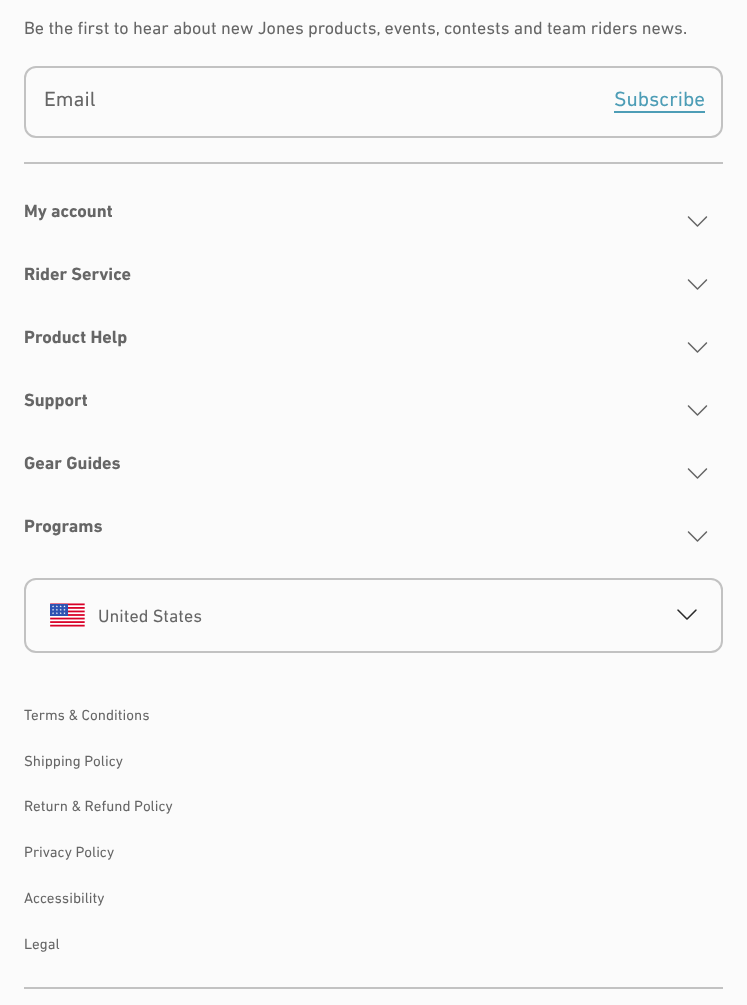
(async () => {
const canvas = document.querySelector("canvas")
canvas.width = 747
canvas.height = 1005
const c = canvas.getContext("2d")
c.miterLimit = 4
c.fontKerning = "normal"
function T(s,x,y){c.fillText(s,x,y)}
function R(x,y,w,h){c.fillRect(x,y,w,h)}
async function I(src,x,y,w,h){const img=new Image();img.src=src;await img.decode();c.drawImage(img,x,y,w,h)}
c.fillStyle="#fbfbfb"
R(0,0,747,1005)
c.fillStyle="#c2c2c2"
R(24,162,699,2)
c.font="18px DIN Next"
c.fillStyle="#666"
T("Be the first to hear about new Jones products, events, contests and team riders news.",24,34)
c.beginPath()
c.roundRect(25,67,697,70,11)
c.strokeStyle="#c2c2c2"
c.lineWidth=2
c.stroke()
c.font="21px DIN Next"
T("Email",44,106)
c.fillStyle="#4d9db6"
T("Subscribe",614,106)
R(614,111,91,2)
c.font="bold 18px DIN Next"
c.fillStyle="#666"
T("My account",24,217)
await I("1.png",687,216,21,11)
T("Rider Service",24,280)
await I("1.png",687,279,21,11)
T("Product Help",24,343)
await I("1.png",687,342,21,11)
T("Support",24,406)
await I("2.png",687,405,21,11)
T("Gear Guides",24,469)
await I("1.png",687,468,21,11)
T("Programs",24,532)
await I("1.png",687,531,21,11)
c.beginPath()
c.roundRect(25,579,697,73,11)
c.stroke()
await I("3.png",50,603,35,24)
c.font="18px DIN Next"
T("United States",98,622)
await I("4.png",677,609,20,11)
c.fillStyle="#c2c2c2"
R(24,987,699,2)
c.font="15px DIN Next"
c.fillStyle="#666"
T("Terms & Conditions",24,720)
T("Shipping Policy",24,766)
T("Return & Refund Policy",24,811)
T("Privacy Policy",24,857)
T("Accessibility",24,903)
T("Legal",24,949)
})()
